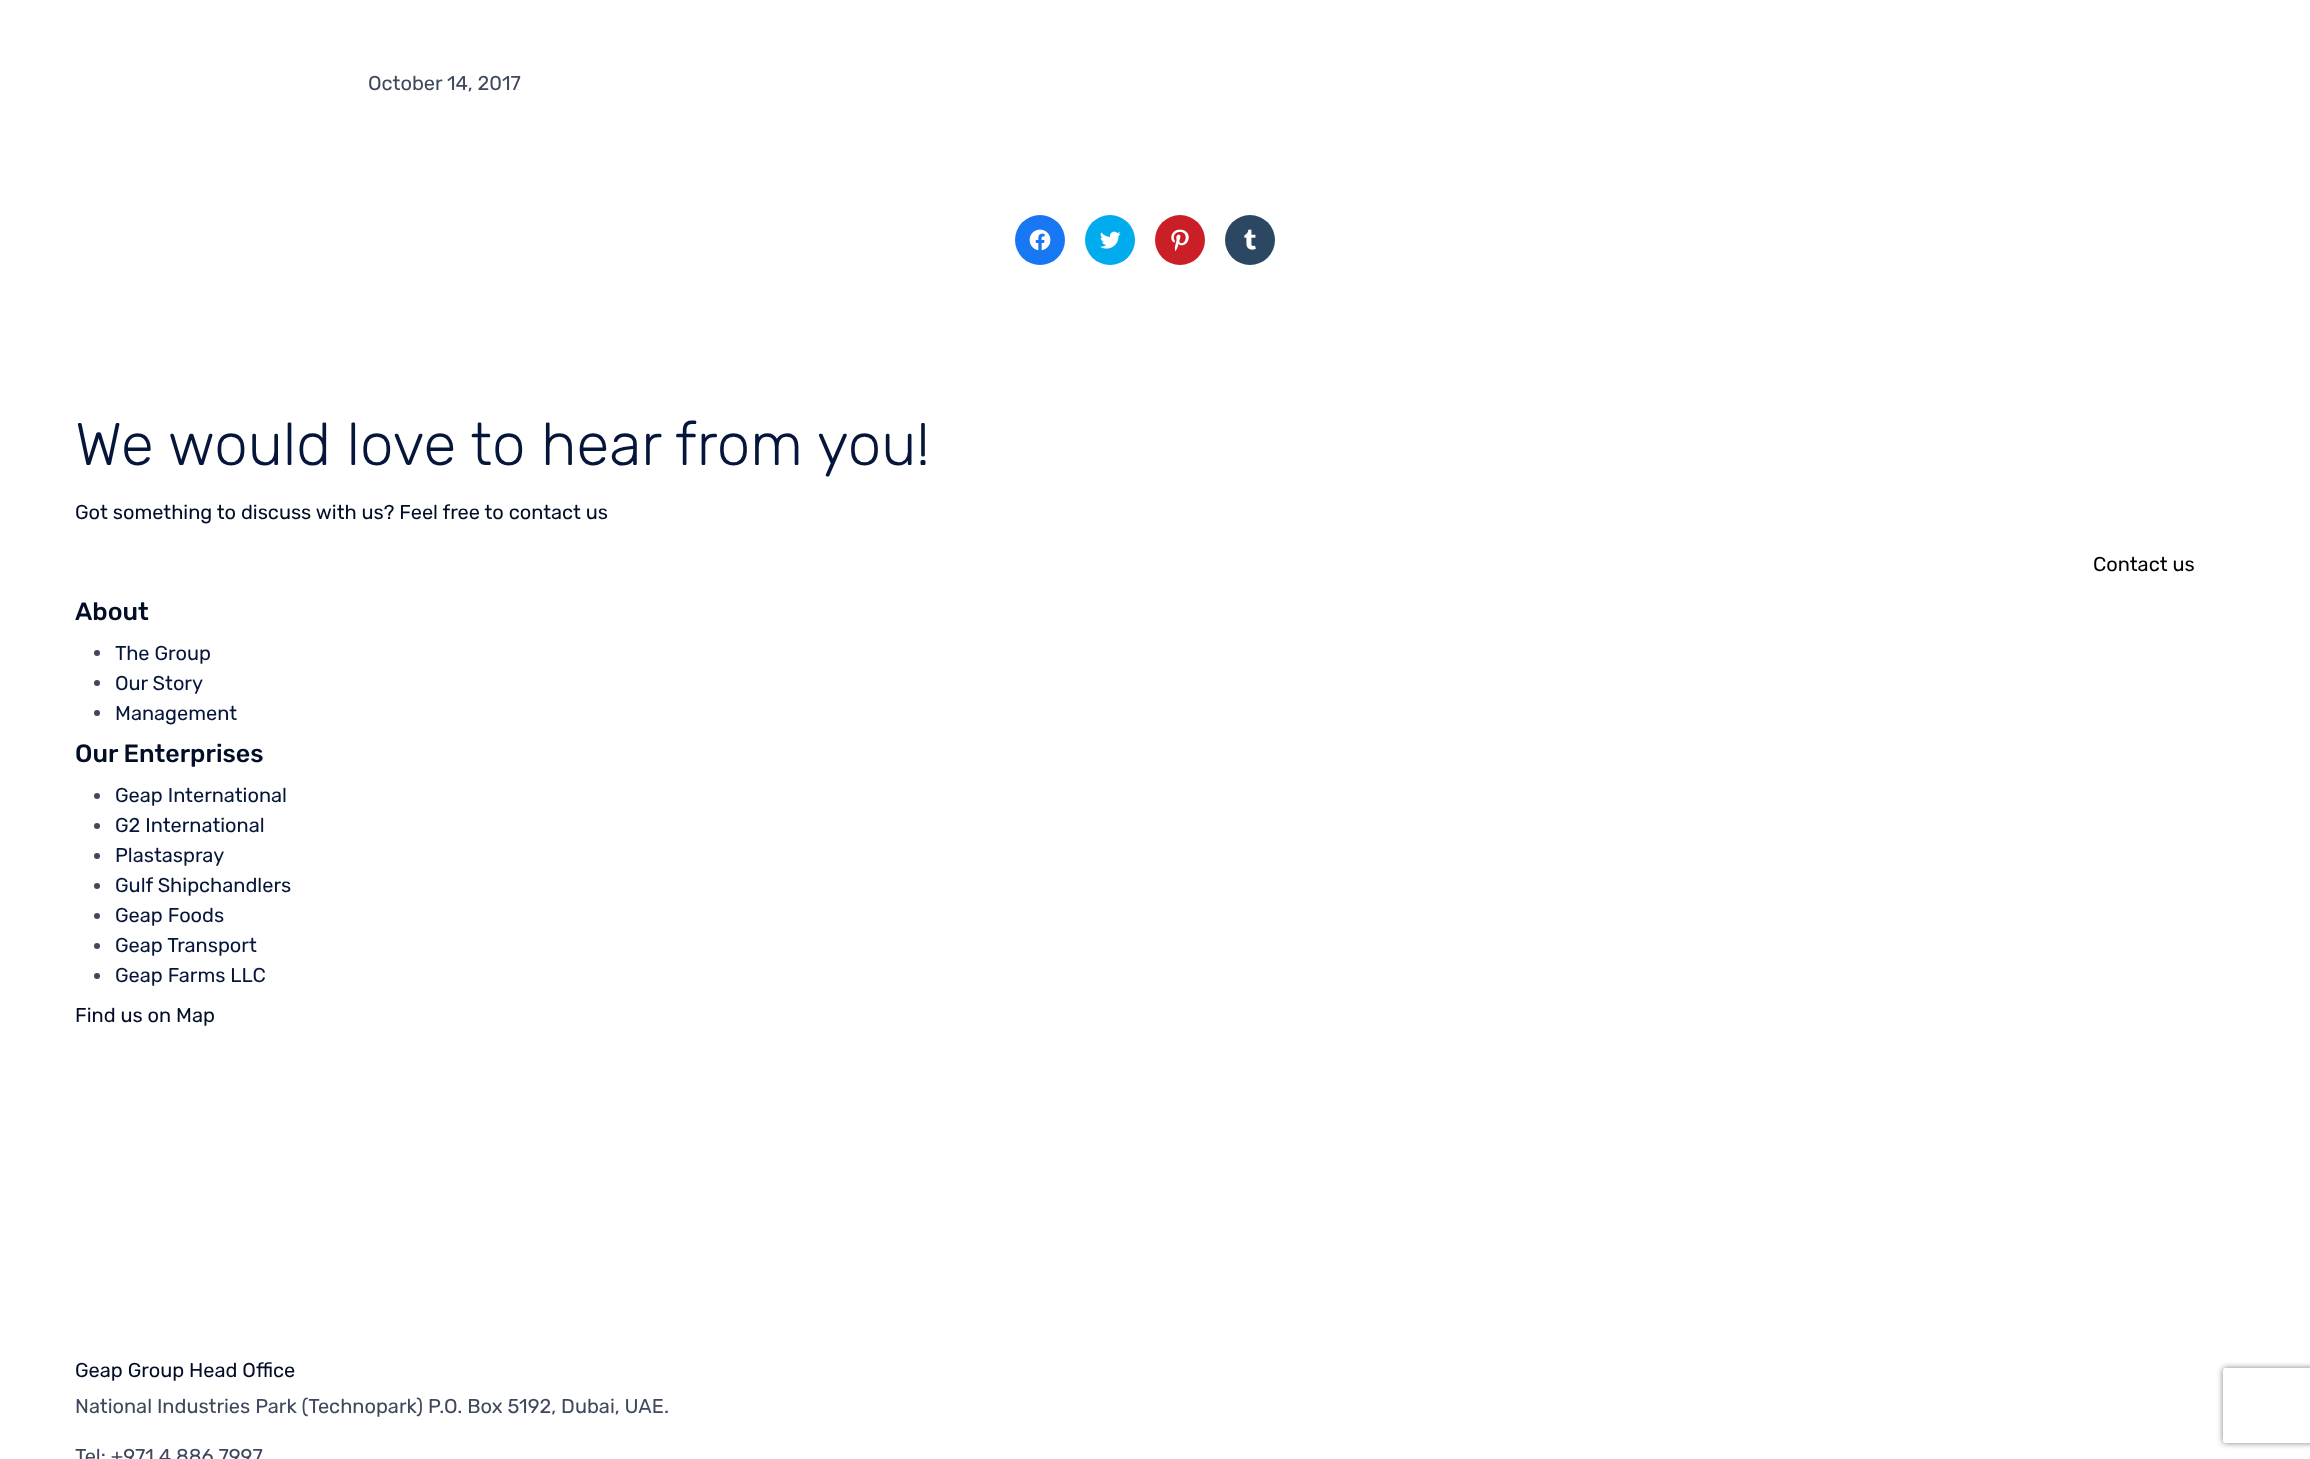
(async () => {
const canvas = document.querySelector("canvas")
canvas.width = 2310
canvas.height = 1459
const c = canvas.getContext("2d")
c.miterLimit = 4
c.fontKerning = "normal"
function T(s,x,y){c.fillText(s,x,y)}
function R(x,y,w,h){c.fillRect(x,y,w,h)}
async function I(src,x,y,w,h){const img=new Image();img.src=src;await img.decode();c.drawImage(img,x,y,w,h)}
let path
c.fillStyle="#fff"
R(0,0,2310,1459)
c.font="20px Rubik"
c.fillStyle="#3f485d"
T("October 14, 2017",368,90)
c.fillStyle="#1877f2"
c.beginPath()
c.arc(1040,240,25,0,7)
c.fill()
await I("1.png",1029,229,22,22)
c.fillStyle="#00acee"
c.beginPath()
c.arc(1110,240,25,0,7)
c.fill()
await I("2.png",1100,231,21,18)
c.fillStyle="#ca1f27"
c.beginPath()
c.arc(1180,240,25,0,7)
c.fill()
await I("3.png",1171,229,18,23)
c.fillStyle="#2c4762"
c.beginPath()
c.arc(1250,240,25,0,7)
c.fill()
await I("4.png",1244,229,12,21)
c.font="300 60px Rubik"
c.fillStyle="#06163a"
T("We would love to hear from you!",75,465)
c.font="20px Rubik"
c.fillStyle="#020d26"
T("Got something to discuss with us? Feel free to contact us",75,519)
c.fillStyle="#000"
T("Contact us",2093,571)
c.font="300 25px 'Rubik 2'"
c.fillStyle="#020d26"
T("About",75,620)
c.fillStyle="#3f485d"
c.beginPath()
c.arc(97,653,3,0,7)
c.fill()
c.font="20px Rubik"
c.fillStyle="#06163a"
T("The Group",115,660)
c.fillStyle="#3f485d"
c.beginPath()
c.arc(97,683,3,0,7)
c.fill()
c.fillStyle="#06163a"
T("Our Story",115,690)
c.fillStyle="#3f485d"
c.beginPath()
c.arc(97,713,3,0,7)
c.fill()
c.fillStyle="#06163a"
T("Management",115,720)
c.font="300 25px 'Rubik 2'"
c.fillStyle="#020d26"
T("Our Enterprises",75,762)
c.fillStyle="#3f485d"
c.beginPath()
c.arc(97,796,3,0,7)
c.fill()
c.font="20px Rubik"
c.fillStyle="#06163a"
T("Geap International",115,802)
c.fillStyle="#3f485d"
c.beginPath()
c.arc(97,826,3,0,7)
c.fill()
c.fillStyle="#06163a"
T("G2 International",115,832)
c.fillStyle="#3f485d"
c.beginPath()
c.arc(97,856,3,0,7)
c.fill()
c.fillStyle="#06163a"
T("Plastaspray",115,862)
c.fillStyle="#3f485d"
c.beginPath()
c.arc(97,886,3,0,7)
c.fill()
c.fillStyle="#06163a"
T("Gulf Shipchandlers",115,892)
c.fillStyle="#3f485d"
c.beginPath()
c.arc(97,916,3,0,7)
c.fill()
c.fillStyle="#06163a"
T("Geap Foods",115,922)
c.fillStyle="#3f485d"
c.beginPath()
c.arc(97,946,3,0,7)
c.fill()
c.fillStyle="#06163a"
T("Geap Transport",115,952)
c.fillStyle="#3f485d"
c.beginPath()
c.arc(97,976,3,0,7)
c.fill()
c.fillStyle="#06163a"
T("Geap Farms LLC",115,982)
c.fillStyle="#020d26"
T("Find us on Map",75,1022)
T("Geap Group Head Office",75,1377)
c.fillStyle="#3f485d"
T("National Industries Park (Technopark) P.O. Box 5192, Dubai, UAE.",75,1413)
T("Tel: +971 4 886 7997",75,1463)
c.save()
path = new Path2D("M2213 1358h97v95h-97zm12.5 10h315c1.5 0 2.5 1 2.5 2.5v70c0 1.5-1 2.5-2.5 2.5h-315c-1.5 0-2.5-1-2.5-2.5v-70c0-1.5 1-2.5 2.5-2.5z")
c.clip(path,"evenodd")
c.fillStyle="#808080"
c.filter="blur(3px)"
c.beginPath()
c.roundRect(2223,1368,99,75,2.5)
c.fill()
c.filter="none"
c.restore()
})()
